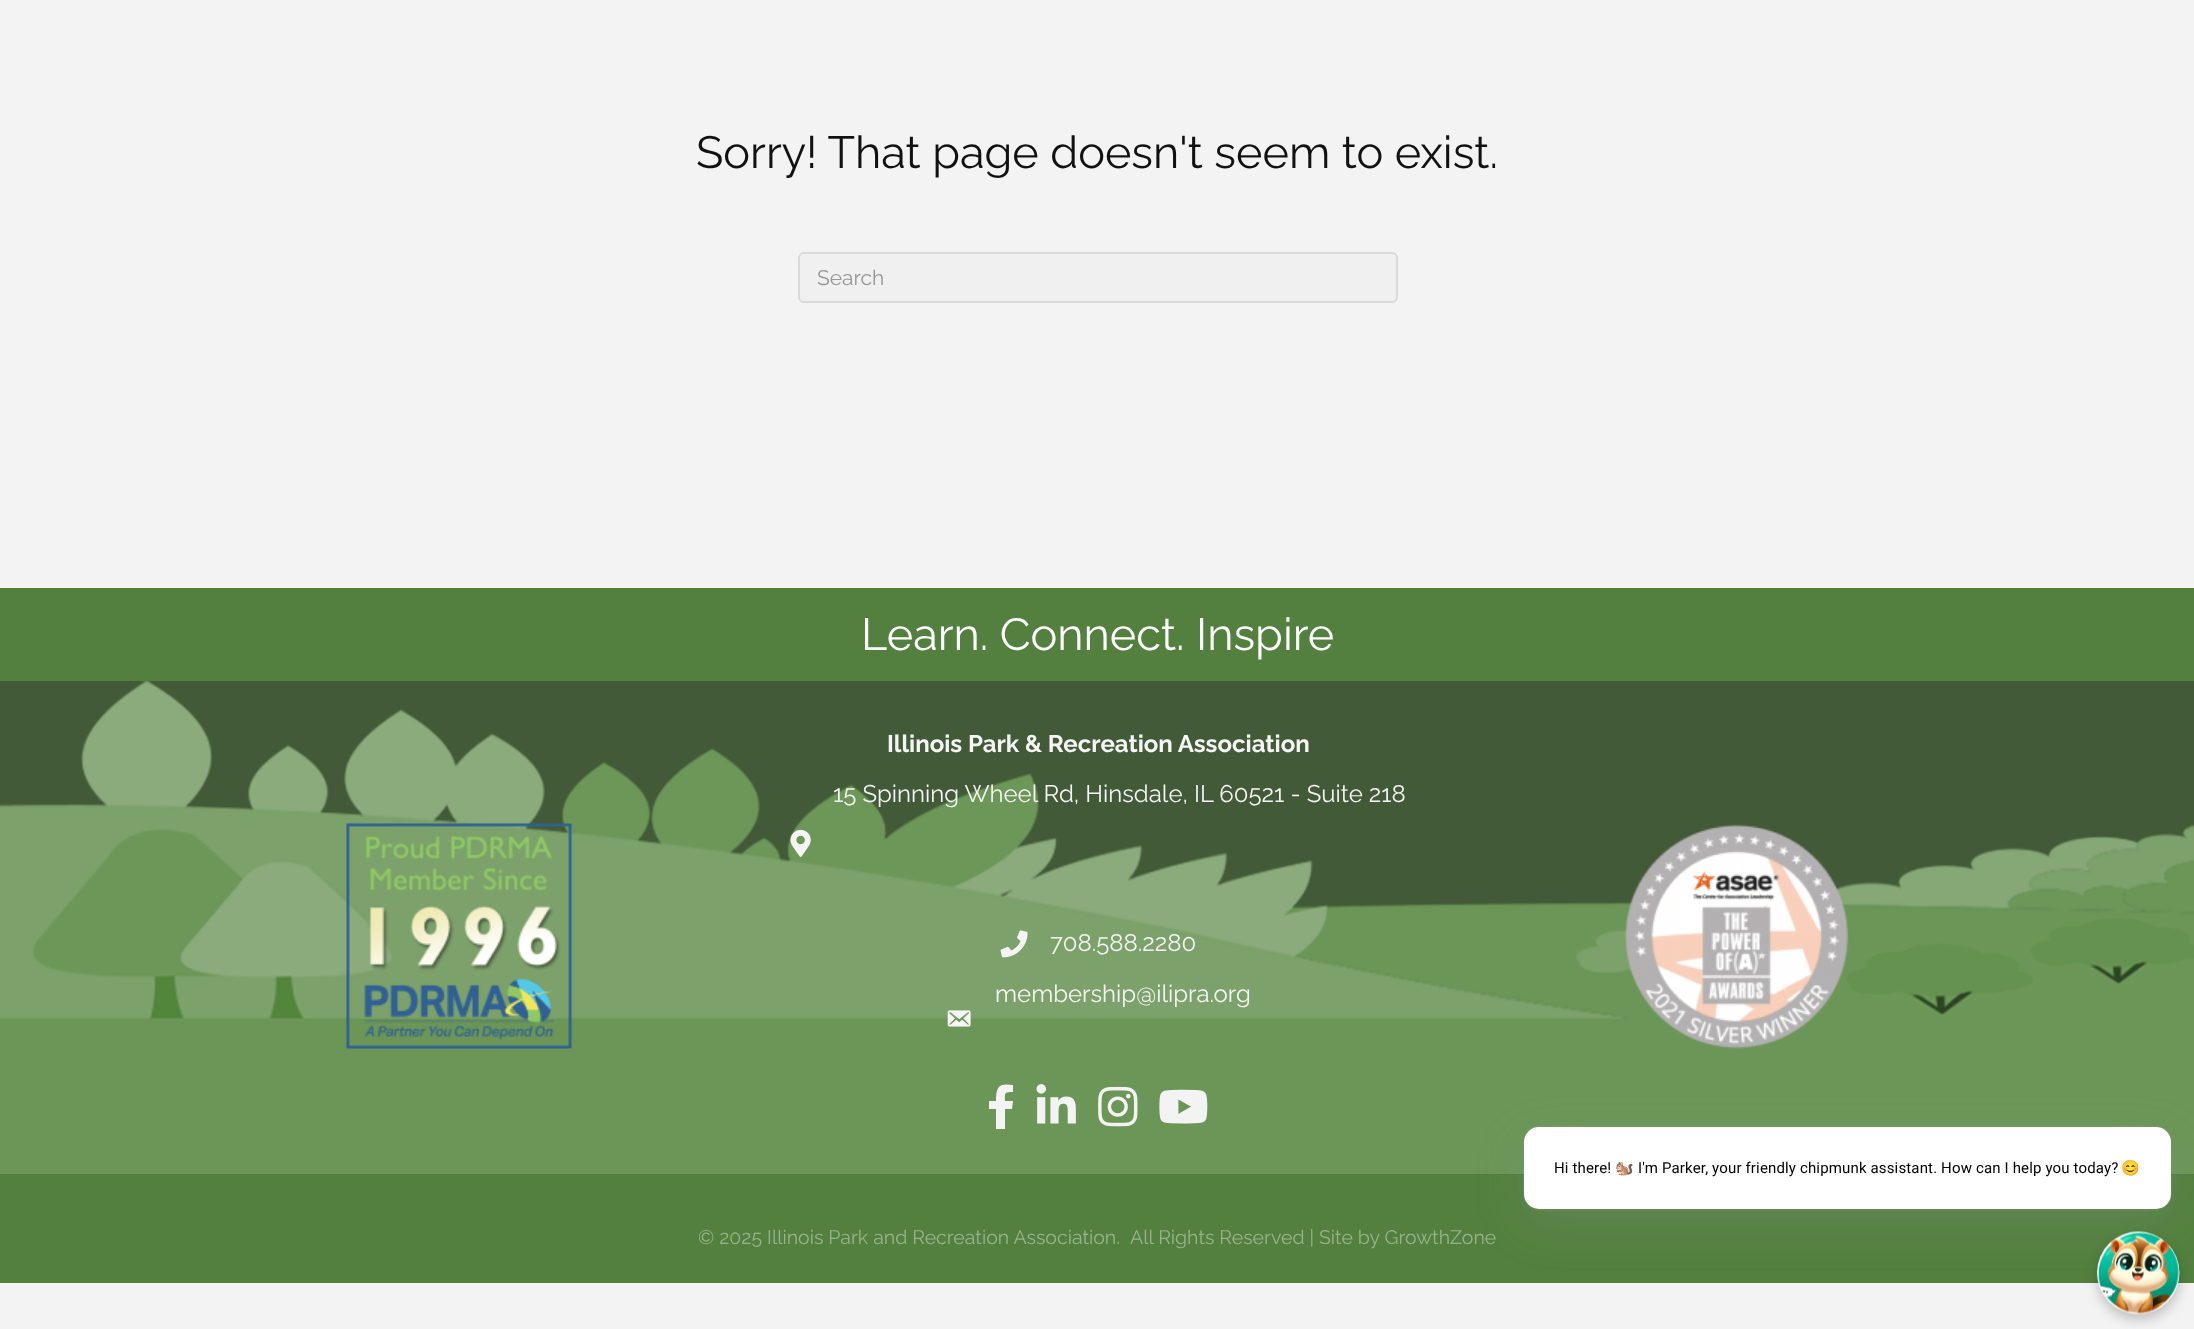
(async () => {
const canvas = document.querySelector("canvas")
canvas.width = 2194
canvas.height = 1329
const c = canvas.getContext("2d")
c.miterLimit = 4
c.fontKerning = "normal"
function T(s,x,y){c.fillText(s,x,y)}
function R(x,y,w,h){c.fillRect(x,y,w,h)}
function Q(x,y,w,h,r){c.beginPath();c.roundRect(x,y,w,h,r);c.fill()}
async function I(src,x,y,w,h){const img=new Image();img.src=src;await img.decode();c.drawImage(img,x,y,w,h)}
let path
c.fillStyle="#f3f3f3"
R(0,0,2194,1329)
c.font="45px Raleway"
c.fillStyle="#111"
T("Sorry! That page doesn't seem to exist.",696,168)
c.fillStyle="#f0f0f0"
c.beginPath()
c.roundRect(799,253,598,49,5)
c.fill()
c.strokeStyle="#dadada"
c.lineWidth=2
c.stroke()
c.font="21px Raleway"
c.fillStyle="#979797"
T("Search",817,285)
c.fillStyle="#53803f"
R(0,588,2194,93)
c.font="45px Raleway"
c.fillStyle="#fff"
T("Learn. Connect. Inspire",861,650)
c.fillStyle="#425a37"
R(0,681,2194,494)
await I("1.png",0,681,2194,494)
await I("2.png",346,823,226,226)
c.font="bold 24px Raleway"
c.fillStyle="#f5f5f5"
T("Illinois Park & Recreation Association",887,752)
c.font="24px Raleway"
T("15 Spinning Wheel Rd, Hinsdale, IL 60521 - Suite 218",833,802)
await I("3.png",790,829,21,28)
await I("4.png",1000,930,28,28)
T("708.588.2280",1050,951)
T("membership@ilipra.org",995,1002)
await I("5.png",947,1010,24,17)
c.fillStyle="#f3f3f3"
path = new Path2D("M1012 1109h-7v20h-9v-20h-7v-8h7c0-15 3-18 17-16v7c-9 0-8 1-8 9h8z")
c.fill(path)
await I("6.png",1036,1084,40,40)
await I("7.png",1098,1086,40,41)
await I("8.png",1159,1089,49,35)
await I("9.png",1624,824,225,225)
c.fillStyle="#53803f"
R(0,1175,2194,108)
c.font="19.5px Raleway"
c.fillStyle="#98b38c"
T("© 2025 Illinois Park and Recreation Association.",698,1244)
T("All Rights Reserved | Site by GrowthZone",1130,1244)
c.beginPath()
c.roundRect(1524,1126,647,84,16)
c.strokeStyle="#96969633"
c.stroke()
c.fillStyle="#96969633"
c.filter="blur(22.5px)"
c.beginPath()
c.roundRect(1524,1142,647,82,15)
c.fill()
c.filter="none"
c.fillStyle="#fff"
Q(1524,1127,647,82,15)
c.letterSpacing="0.15px"
c.font="15px Roboto"
c.fillStyle="#000"
T("Hi there!",1554,1173)
c.font="15px Noto Color Emoji"
T("🐿",1615,1173)
c.font="15px Roboto"
T("I'm Parker, your friendly chipmunk assistant. How can I help you today?",1638,1173)
c.font="15px Noto Color Emoji"
T("😊",2121,1173)
c.fillStyle="#00000033"
c.filter="blur(6px)"
c.beginPath()
c.roundRect(2097,1238,83,82,41)
c.fill()
c.filter="none"
await I("10.png",2097,1231,83,84)
})()
